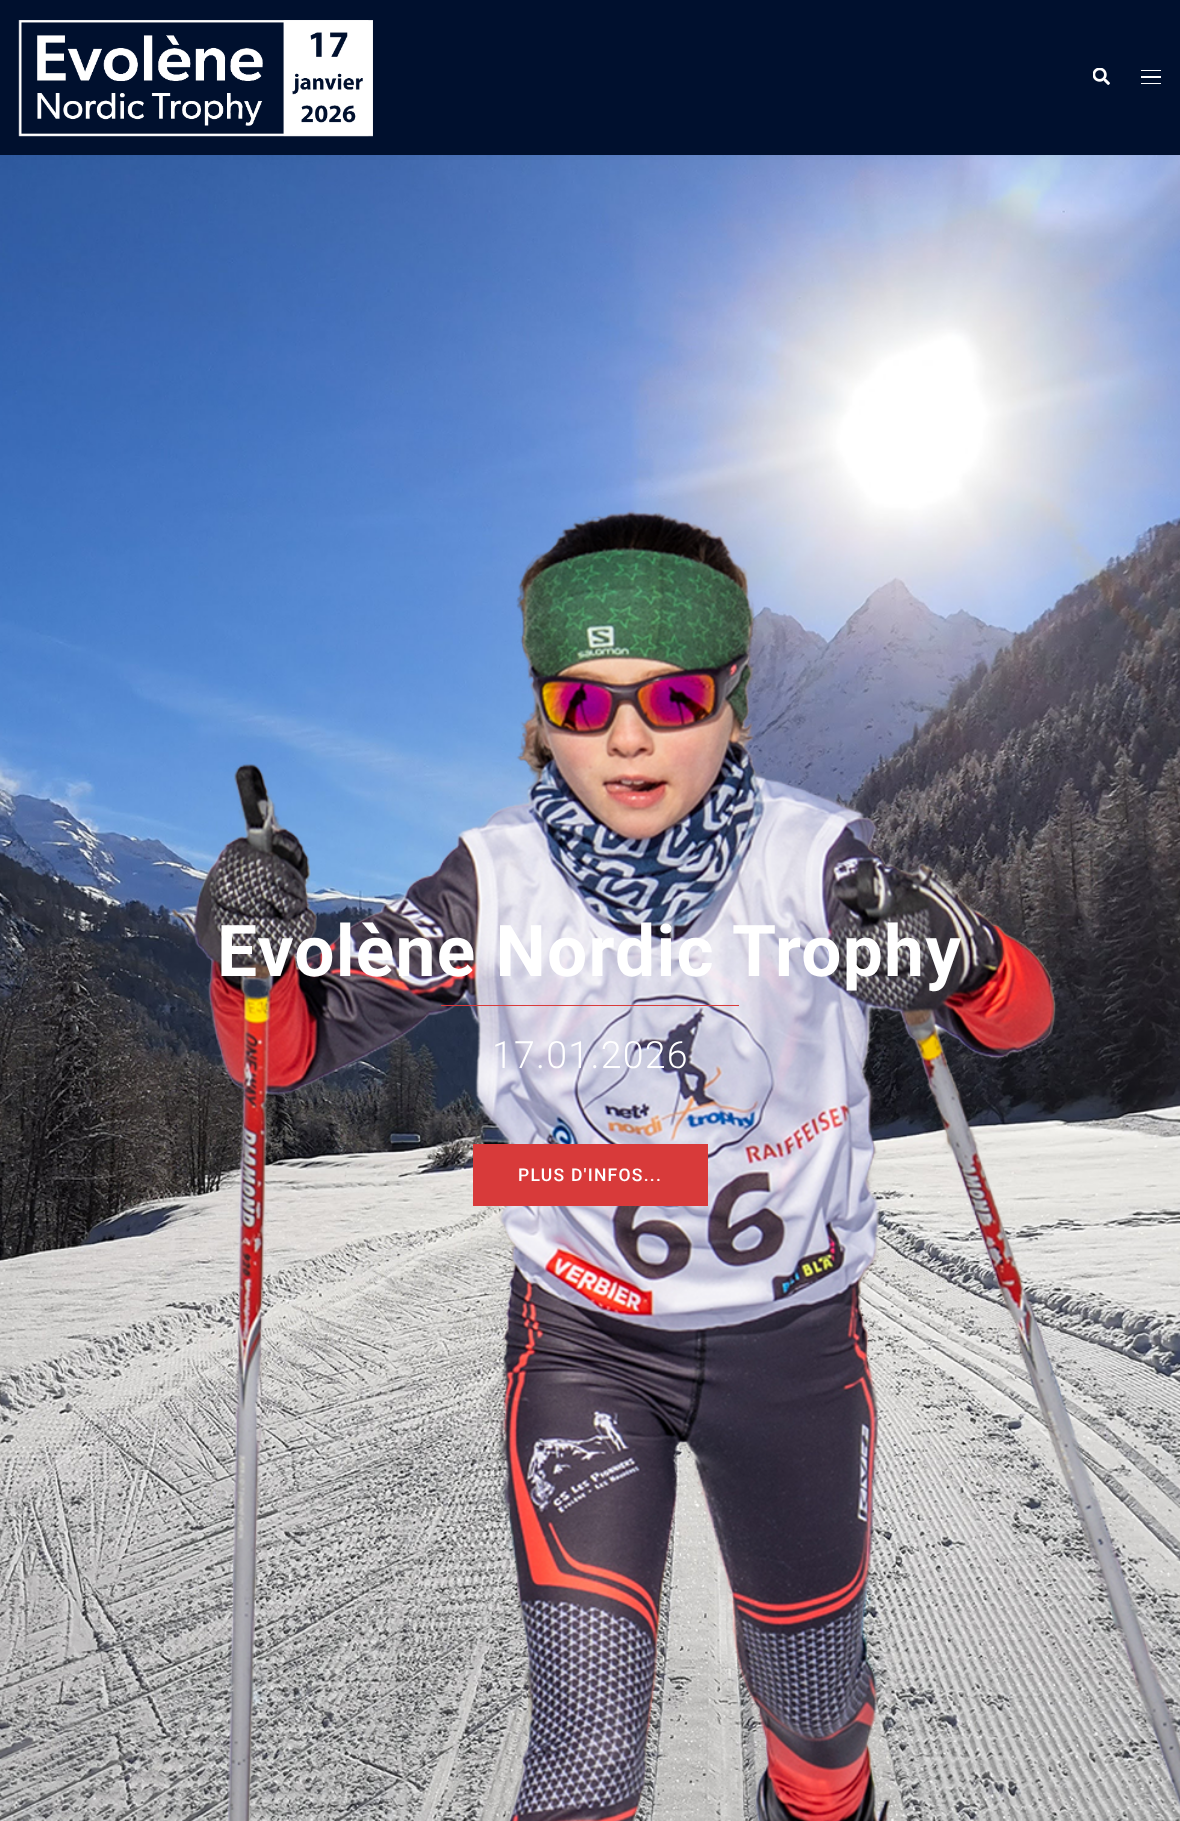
(async () => {
const canvas = document.querySelector("canvas")
canvas.width = 1180
canvas.height = 1821
const c = canvas.getContext("2d")
c.miterLimit = 4
c.fontKerning = "normal"
function T(s,x,y){c.fillText(s,x,y)}
function R(x,y,w,h){c.fillRect(x,y,w,h)}
async function I(src,x,y,w,h){const img=new Image();img.src=src;await img.decode();c.drawImage(img,x,y,w,h)}
c.fillStyle="#00102e"
R(0,0,1180,1821)
await I("1.png",18,20,355,117)
await I("2.png",1093,68,17,17)
c.fillStyle="#fff"
R(1141,70,20,1)
R(1141,76,20,2)
R(1141,83,20,1)
await I("3.png",0,155,1180,1666)
c.letterSpacing="1.25px"
c.font="bold 71.25px Roboto"
T("Evolène Nordic Trophy",217,976)
c.fillStyle="#d83a3a"
R(441,1005,298,1)
c.font="300 37.5px Roboto"
c.fillStyle="#fff"
T("17.01.2026",492,1068)
c.fillStyle="#d83a3a"
R(473,1144,235,62)
c.font="500 17.5px Roboto"
c.fillStyle="#fff"
T("PLUS D'INFOS...",518,1181)
})()
